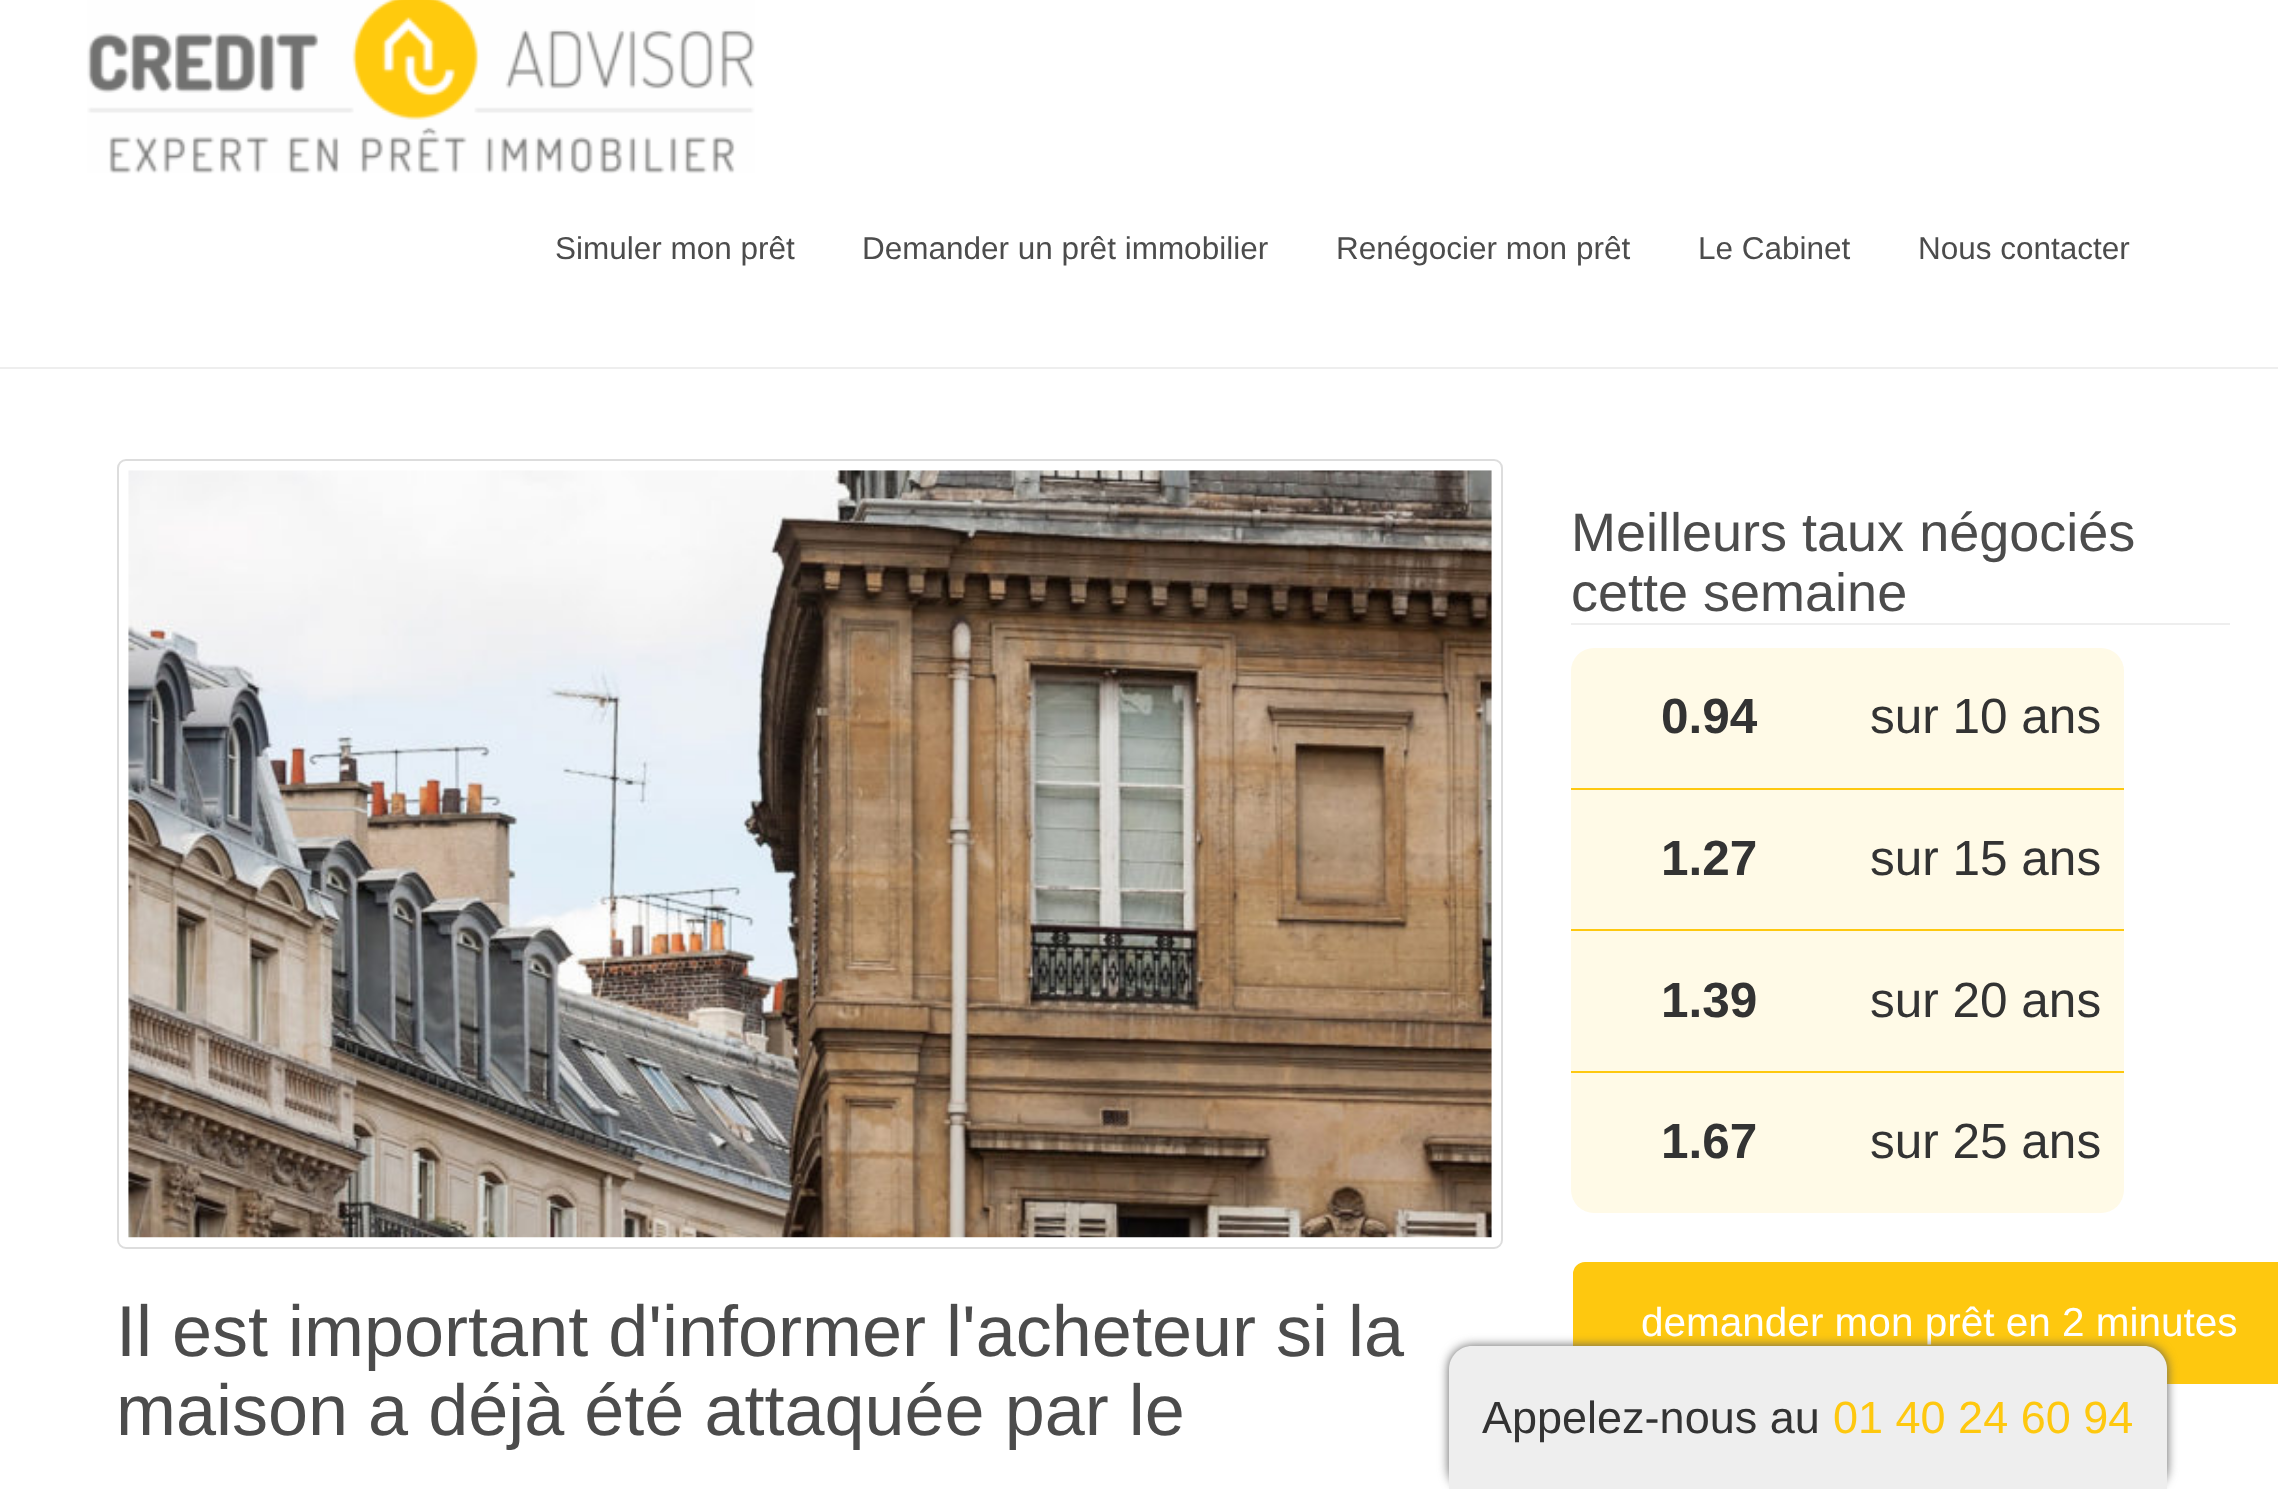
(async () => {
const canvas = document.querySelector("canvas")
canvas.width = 2278
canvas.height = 1489
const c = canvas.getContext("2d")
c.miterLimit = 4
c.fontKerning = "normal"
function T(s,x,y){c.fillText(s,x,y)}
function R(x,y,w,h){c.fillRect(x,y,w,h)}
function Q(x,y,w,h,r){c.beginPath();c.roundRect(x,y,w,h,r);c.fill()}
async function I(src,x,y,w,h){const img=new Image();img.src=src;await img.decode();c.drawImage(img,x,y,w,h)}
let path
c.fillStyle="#fff"
R(0,0,2278,1489)
c.fillStyle="#eee"
R(0,367,2278,2)
await I("1.png",87,0,668,174)
c.font="31.5px Liberation Sans"
c.fillStyle="#4c4c4c"
T("Simuler mon prêt",555,259)
T("Demander un prêt immobilier",862,259)
T("Renégocier mon prêt",1336,259)
T("Le Cabinet",1698,259)
T("Nous contacter",1918,259)
c.fillStyle="#eee"
R(1571,623,659,2)
c.font="54px Liberation Sans"
c.fillStyle="#4c4c4c"
T("Meilleurs taux négociés",1571,551)
T("cette semaine",1571,611)
c.fillStyle="#fffae7"
Q(1571,648,553,565,23)
c.font="bold 49.5px Liberation Sans"
c.fillStyle="#333"
T("0.94",1661,733)
c.font="49.5px Liberation Sans"
T("sur 10 ans",1870,733)
c.fillStyle="#fec80f"
R(1571,788,553,2)
c.font="bold 49.5px Liberation Sans"
c.fillStyle="#333"
T("1.27",1661,875)
c.font="49.5px Liberation Sans"
T("sur 15 ans",1870,875)
c.fillStyle="#fec80f"
R(1571,929,553,2)
c.font="bold 49.5px Liberation Sans"
c.fillStyle="#333"
T("1.39",1661,1017)
c.font="49.5px Liberation Sans"
T("sur 20 ans",1870,1017)
c.fillStyle="#fec80f"
R(1571,1071,553,2)
c.font="bold 49.5px Liberation Sans"
c.fillStyle="#333"
T("1.67",1661,1158)
c.font="49.5px Liberation Sans"
T("sur 25 ans",1870,1158)
c.fillStyle="#fec80f"
c.beginPath()
c.roundRect(1572,1261,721,124,13)
c.fill()
c.strokeStyle="#fff"
c.lineWidth=2
c.stroke()
c.font="40.5px Liberation Sans"
c.fillStyle="#fff"
T("demander mon prêt en 2 minutes",1641,1336)
c.beginPath()
c.roundRect(118,460,1384,788,8)
c.strokeStyle="#ddd"
c.stroke()
await I("2.png",128,470,1364,768)
c.font="72px Liberation Sans"
c.fillStyle="#4c4c4c"
T("Il est important d'informer l'acheteur si la",116,1356)
T("maison a déjà été attaquée par le",116,1435)
c.fillStyle="#5c5c5c"
c.filter="blur(5.5px)"
c.beginPath()
c.roundRect(1449,1346,718,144,23)
c.fill()
c.filter="none"
c.fillStyle="#eee"
path = new Path2D("M1472 1346h672c12.5 0 23 10.5 23 23v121h-718v-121c0-12.5 10.5-23 23-23z")
c.fill(path)
c.font="45px Liberation Sans"
c.fillStyle="#333"
T("Appelez-nous au",1482,1433)
c.fillStyle="#fec80f"
T("01 40 24 60 94",1833,1433)
})()
